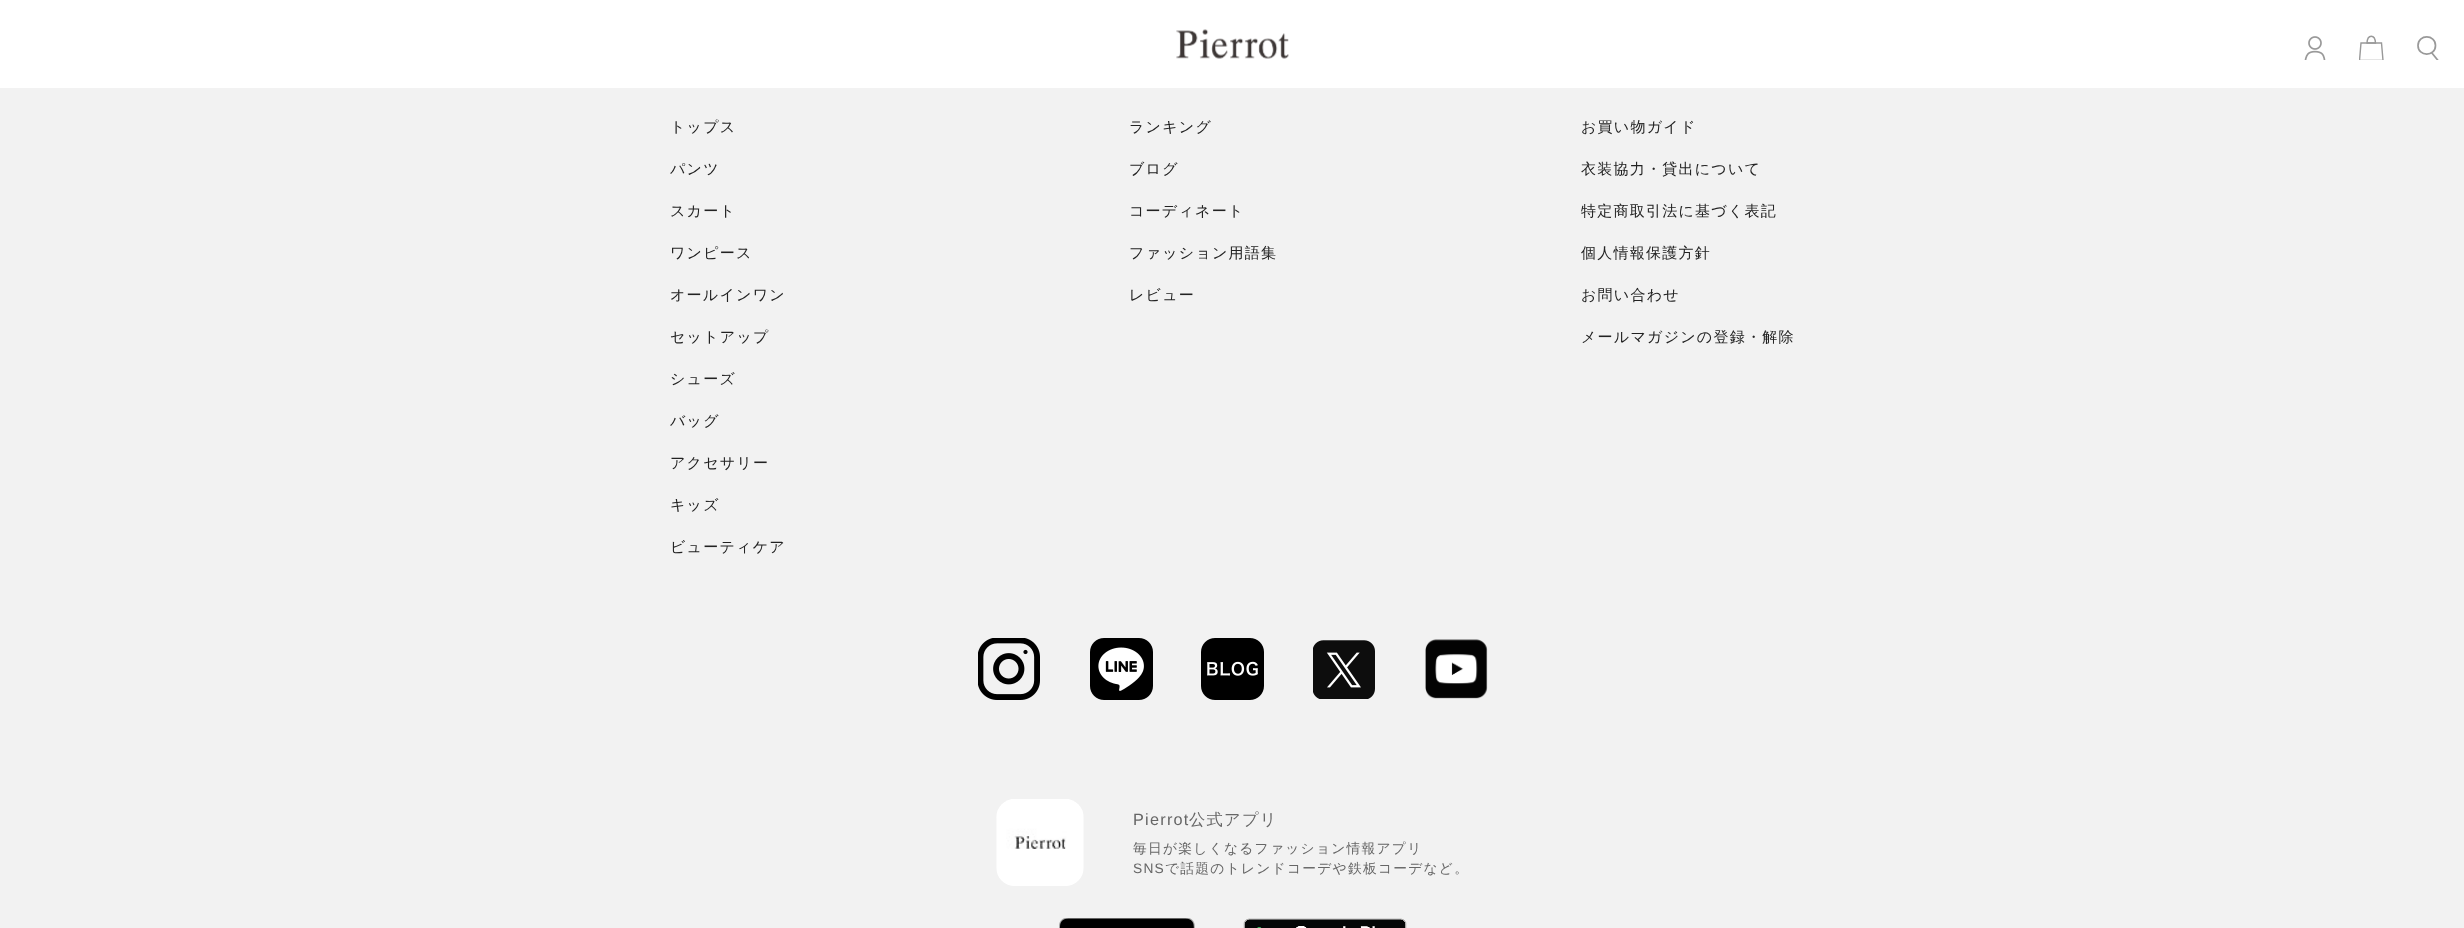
(async () => {
const canvas = document.querySelector("canvas")
canvas.width = 2464
canvas.height = 928
const c = canvas.getContext("2d")
c.miterLimit = 4
c.fontKerning = "normal"
function T(s,x,y){c.fillText(s,x,y)}
function R(x,y,w,h){c.fillRect(x,y,w,h)}
async function I(src,x,y,w,h){const img=new Image();img.src=src;await img.decode();c.drawImage(img,x,y,w,h)}
let path
c.fillStyle="#f2f2f2"
R(0,0,2464,928)
c.fillStyle="#fff"
R(0,0,2464,88)
await I("1.png",1176,29,113,30)
await I("2.png",2304,36,22,24)
path = new Path2D("M2375.5 43c-.5-9-8-9-8.5 0z")
c.strokeStyle="#999"
c.lineWidth=1.4
c.stroke(path)
c.save()
c.beginPath()
c.rect(2359,35,25,25)
c.clip()
path = new Path2D("M2383 60.5h-23.5l1.5-17.5h20.5z")
c.stroke(path)
c.restore()
path = new Path2D("M2435.5 45.5c0 11.5-17.5 11.5-17.5 0c0-11.5 17.5-11.5 17.5 0z")
c.lineWidth=1.7
c.stroke(path)
c.save()
c.beginPath()
c.rect(2415,35,25,25)
c.clip()
path = new Path2D("M2431.5 52.5l6.5 8")
c.stroke(path)
c.restore()
c.letterSpacing="1.25px"
c.font="500 15px WenQuanYi Zen Hei"
c.fillStyle="#222"
T("トップス",670,132)
T("パンツ",670,174)
T("スカート",670,216)
T("ワンピース",670,258)
T("オールインワン",670,300)
T("セットアップ",670,342)
T("シューズ",670,384)
T("バッグ",670,426)
T("アクセサリー",670,468)
T("キッズ",670,510)
T("ビューティケア",670,552)
T("ランキング",1129,132)
T("ブログ",1129,174)
T("コーディネート",1129,216)
T("ファッション用語集",1129,258)
T("レビュー",1129,300)
T("お買い物ガイド",1581,132)
T("衣装協力・貸出について",1581,174)
T("特定商取引法に基づく表記",1581,216)
T("個人情報保護方針",1581,258)
T("お問い合わせ",1581,300)
T("メールマガジンの登録・解除",1581,342)
await I("3.png",978,638,62,62)
await I("4.png",1090,638,63,62)
await I("5.png",1201,638,63,62)
await I("6.png",1313,640,62,59)
await I("7.png",1425,639,63,60)
await I("8.png",996,799,88,87)
c.font="16.25px Liberation Sans"
c.fillStyle="#666"
T("Pierrot",1133,825)
c.font="500 16.25px WenQuanYi Zen Hei"
T("公式アプリ",1189,825)
c.font="500 13.75px WenQuanYi Zen Hei"
T("毎日が楽しくなるファッション情報アプリ",1133,853)
c.font="13.75px Liberation Sans"
T("SNS",1133,873)
c.font="500 13.75px WenQuanYi Zen Hei"
T("で話題のトレンドコーデや鉄板コーデなど。",1165,873)
await I("9.png",1059,918,136,10)
await I("10.png",1243,918,164,10)
})()
